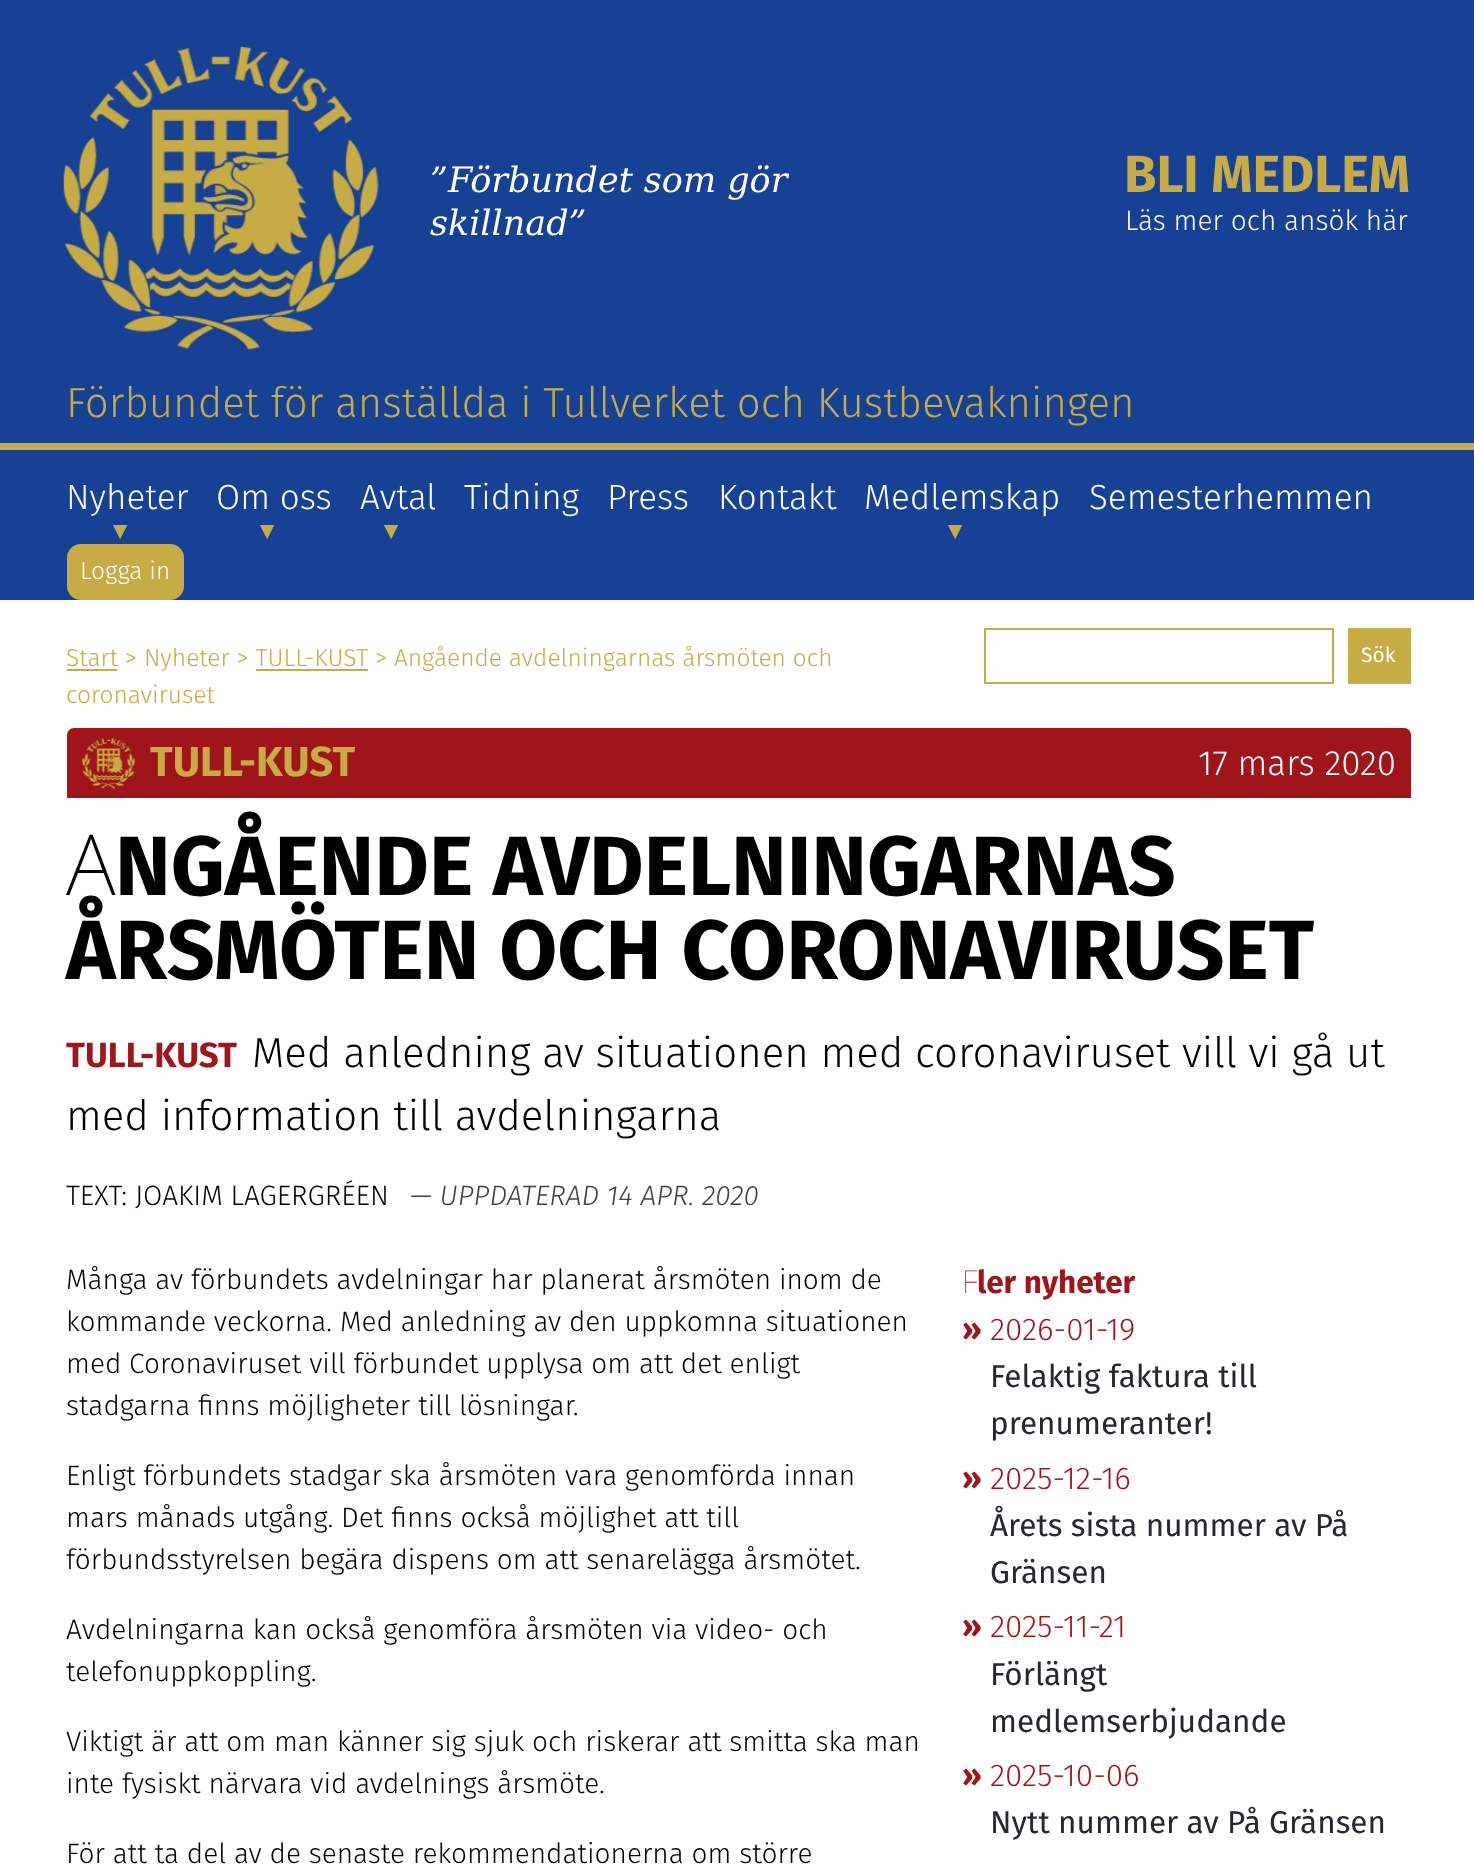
(async () => {
const canvas = document.querySelector("canvas")
canvas.width = 1474
canvas.height = 1874
const c = canvas.getContext("2d")
c.miterLimit = 4
c.fontKerning = "normal"
function T(s,x,y){c.fillText(s,x,y)}
function R(x,y,w,h){c.fillRect(x,y,w,h)}
function Q(x,y,w,h,r){c.beginPath();c.roundRect(x,y,w,h,r);c.fill()}
async function I(src,x,y,w,h){const img=new Image();img.src=src;await img.decode();c.drawImage(img,x,y,w,h)}
c.fillStyle="#fff"
R(0,0,1474,1874)
c.fillStyle="#164194"
R(0,0,1474,443)
c.fillStyle="#c7ab44"
R(0,443,1474,7)
await I("1.png",63,46,316,304)
c.font="italic 35px DejaVu Serif"
c.fillStyle="#fff"
T("”Förbundet som gör",430,192)
T("skillnad”",430,235)
c.font="bold 52.5px Fira Sans"
c.fillStyle="#c7ab44"
T("BLI MEDLEM",1124,192)
c.font="300 28px Fira Sans"
c.fillStyle="#fff"
T("Läs mer och ansök här",1125,230)
c.font="300 42px Fira Sans"
c.fillStyle="#c7ab44"
T("Förbundet för anställda i Tullverket och Kustbevakningen",66,417)
c.fillStyle="#164194"
R(0,450,1474,150)
c.font="300 35px Fira Sans"
c.fillStyle="#fff"
T("Nyheter",66,509)
c.font="bold 24.5px Liberation Sans"
c.fillStyle="#c7ab44"
T("▼",108,539)
c.font="300 35px Fira Sans"
c.fillStyle="#fff"
T("Om oss",216,509)
c.font="bold 24.5px Liberation Sans"
c.fillStyle="#c7ab44"
T("▼",255,539)
c.font="300 35px Fira Sans"
c.fillStyle="#fff"
T("Avtal",360,509)
c.font="bold 24.5px Liberation Sans"
c.fillStyle="#c7ab44"
T("▼",379,539)
c.font="300 35px Fira Sans"
c.fillStyle="#fff"
T("Tidning",464,509)
T("Press",607,509)
T("Kontakt",718,509)
T("Medlemskap",864,509)
c.font="bold 24.5px Liberation Sans"
c.fillStyle="#c7ab44"
T("▼",943,539)
c.font="300 35px Fira Sans"
c.fillStyle="#fff"
T("Semesterhemmen",1089,509)
c.fillStyle="#c7ab44"
Q(67,544,117,56,14)
c.font="300 24.5px Fira Sans"
c.fillStyle="#fff"
T("Logga in",80,579)
c.fillStyle="#c7ab44"
R(67,669,50,2)
T("Start > Nyheter > TULL-KUST > Angående avdelningarnas årsmöten och",66,666)
R(256,669,112,2)
T("coronaviruset",66,703)
c.strokeStyle="#c7ab44"
c.lineWidth=2
c.strokeRect(985,629,348,54)
R(1348,628,63,56)
c.font="21px Fira Sans"
c.fillStyle="#fff"
T("Sök",1361,662)
c.fillStyle="#9f151a"
c.beginPath()
c.roundRect(67,728,1344,70,[7,7,0,0])
c.fill()
await I("2.png",81,738,55,51)
c.font="bold 42px Fira Sans"
c.fillStyle="#c7ab44"
T("TULL-KUST",150,776)
c.font="300 35px Fira Sans"
c.fillStyle="#fff"
T("17 mars 2020",1198,775)
c.font="200 84px Noto Sans"
c.fillStyle="#000"
T("A",66,895)
c.font="bold 84px Fira Sans"
T("NGÅENDE AVDELNINGARNAS",115,895)
T("ÅRSMÖTEN OCH CORONAVIRUSET",66,979)
c.font="bold 35px Fira Sans"
c.fillStyle="#9f151a"
T("TULL-KUST",66,1067)
c.font="300 42px Fira Sans"
c.fillStyle="#000"
T("Med anledning av situationen med coronaviruset vill vi gå ut",252,1067)
T("med information till avdelningarna",66,1130)
c.font="300 28px Fira Sans"
T("TEXT: JOAKIM LAGERGRÉEN",66,1205)
c.font="italic 300 28px Fira Sans"
c.fillStyle="#414141"
T("— UPPDATERAD 14 APR. 2020",410,1205)
c.font="300 28px Fira Sans"
c.fillStyle="#000"
T("Många av förbundets avdelningar har planerat årsmöten inom de",66,1289)
T("kommande veckorna. Med anledning av den uppkomna situationen",66,1331)
T("med Coronaviruset vill förbundet upplysa om att det enligt",66,1373)
T("stadgarna finns möjligheter till lösningar.",66,1415)
T("Enligt förbundets stadgar ska årsmöten vara genomförda innan",66,1485)
T("mars månads utgång. Det finns också möjlighet att till",66,1527)
T("förbundsstyrelsen begära dispens om att senarelägga årsmötet.",66,1569)
T("Avdelningarna kan också genomföra årsmöten via video- och",66,1639)
T("telefonuppkoppling.",66,1681)
T("Viktigt är att om man känner sig sjuk och riskerar att smitta ska man",66,1751)
T("inte fysiskt närvara vid avdelnings årsmöte.",66,1793)
T("För att ta del av de senaste rekommendationerna om större",66,1863)
c.font="100 31.5px Noto Sans"
c.fillStyle="#9f151a"
T("F",962,1293)
c.font="bold 31.5px Fira Sans"
T("ler nyheter",977,1293)
T("»",962,1340)
c.font="300 31.5px Fira Sans"
T("2026-01-19",990,1340)
c.font="31.5px Fira Sans"
c.fillStyle="#22292f"
T("Felaktig faktura till",990,1387)
T("prenumeranter!",990,1434)
c.font="bold 31.5px Fira Sans"
c.fillStyle="#9f151a"
T("»",962,1489)
c.font="300 31.5px Fira Sans"
T("2025-12-16",990,1489)
c.font="31.5px Fira Sans"
c.fillStyle="#22292f"
T("Årets sista nummer av På",990,1536)
T("Gränsen",990,1583)
c.font="bold 31.5px Fira Sans"
c.fillStyle="#9f151a"
T("»",962,1637)
c.font="300 31.5px Fira Sans"
T("2025-11-21",990,1637)
c.font="31.5px Fira Sans"
c.fillStyle="#22292f"
T("Förlängt",990,1685)
T("medlemserbjudande",990,1732)
c.font="bold 31.5px Fira Sans"
c.fillStyle="#9f151a"
T("»",962,1786)
c.font="300 31.5px Fira Sans"
T("2025-10-06",990,1786)
c.font="31.5px Fira Sans"
c.fillStyle="#22292f"
T("Nytt nummer av På Gränsen",990,1833)
})()
